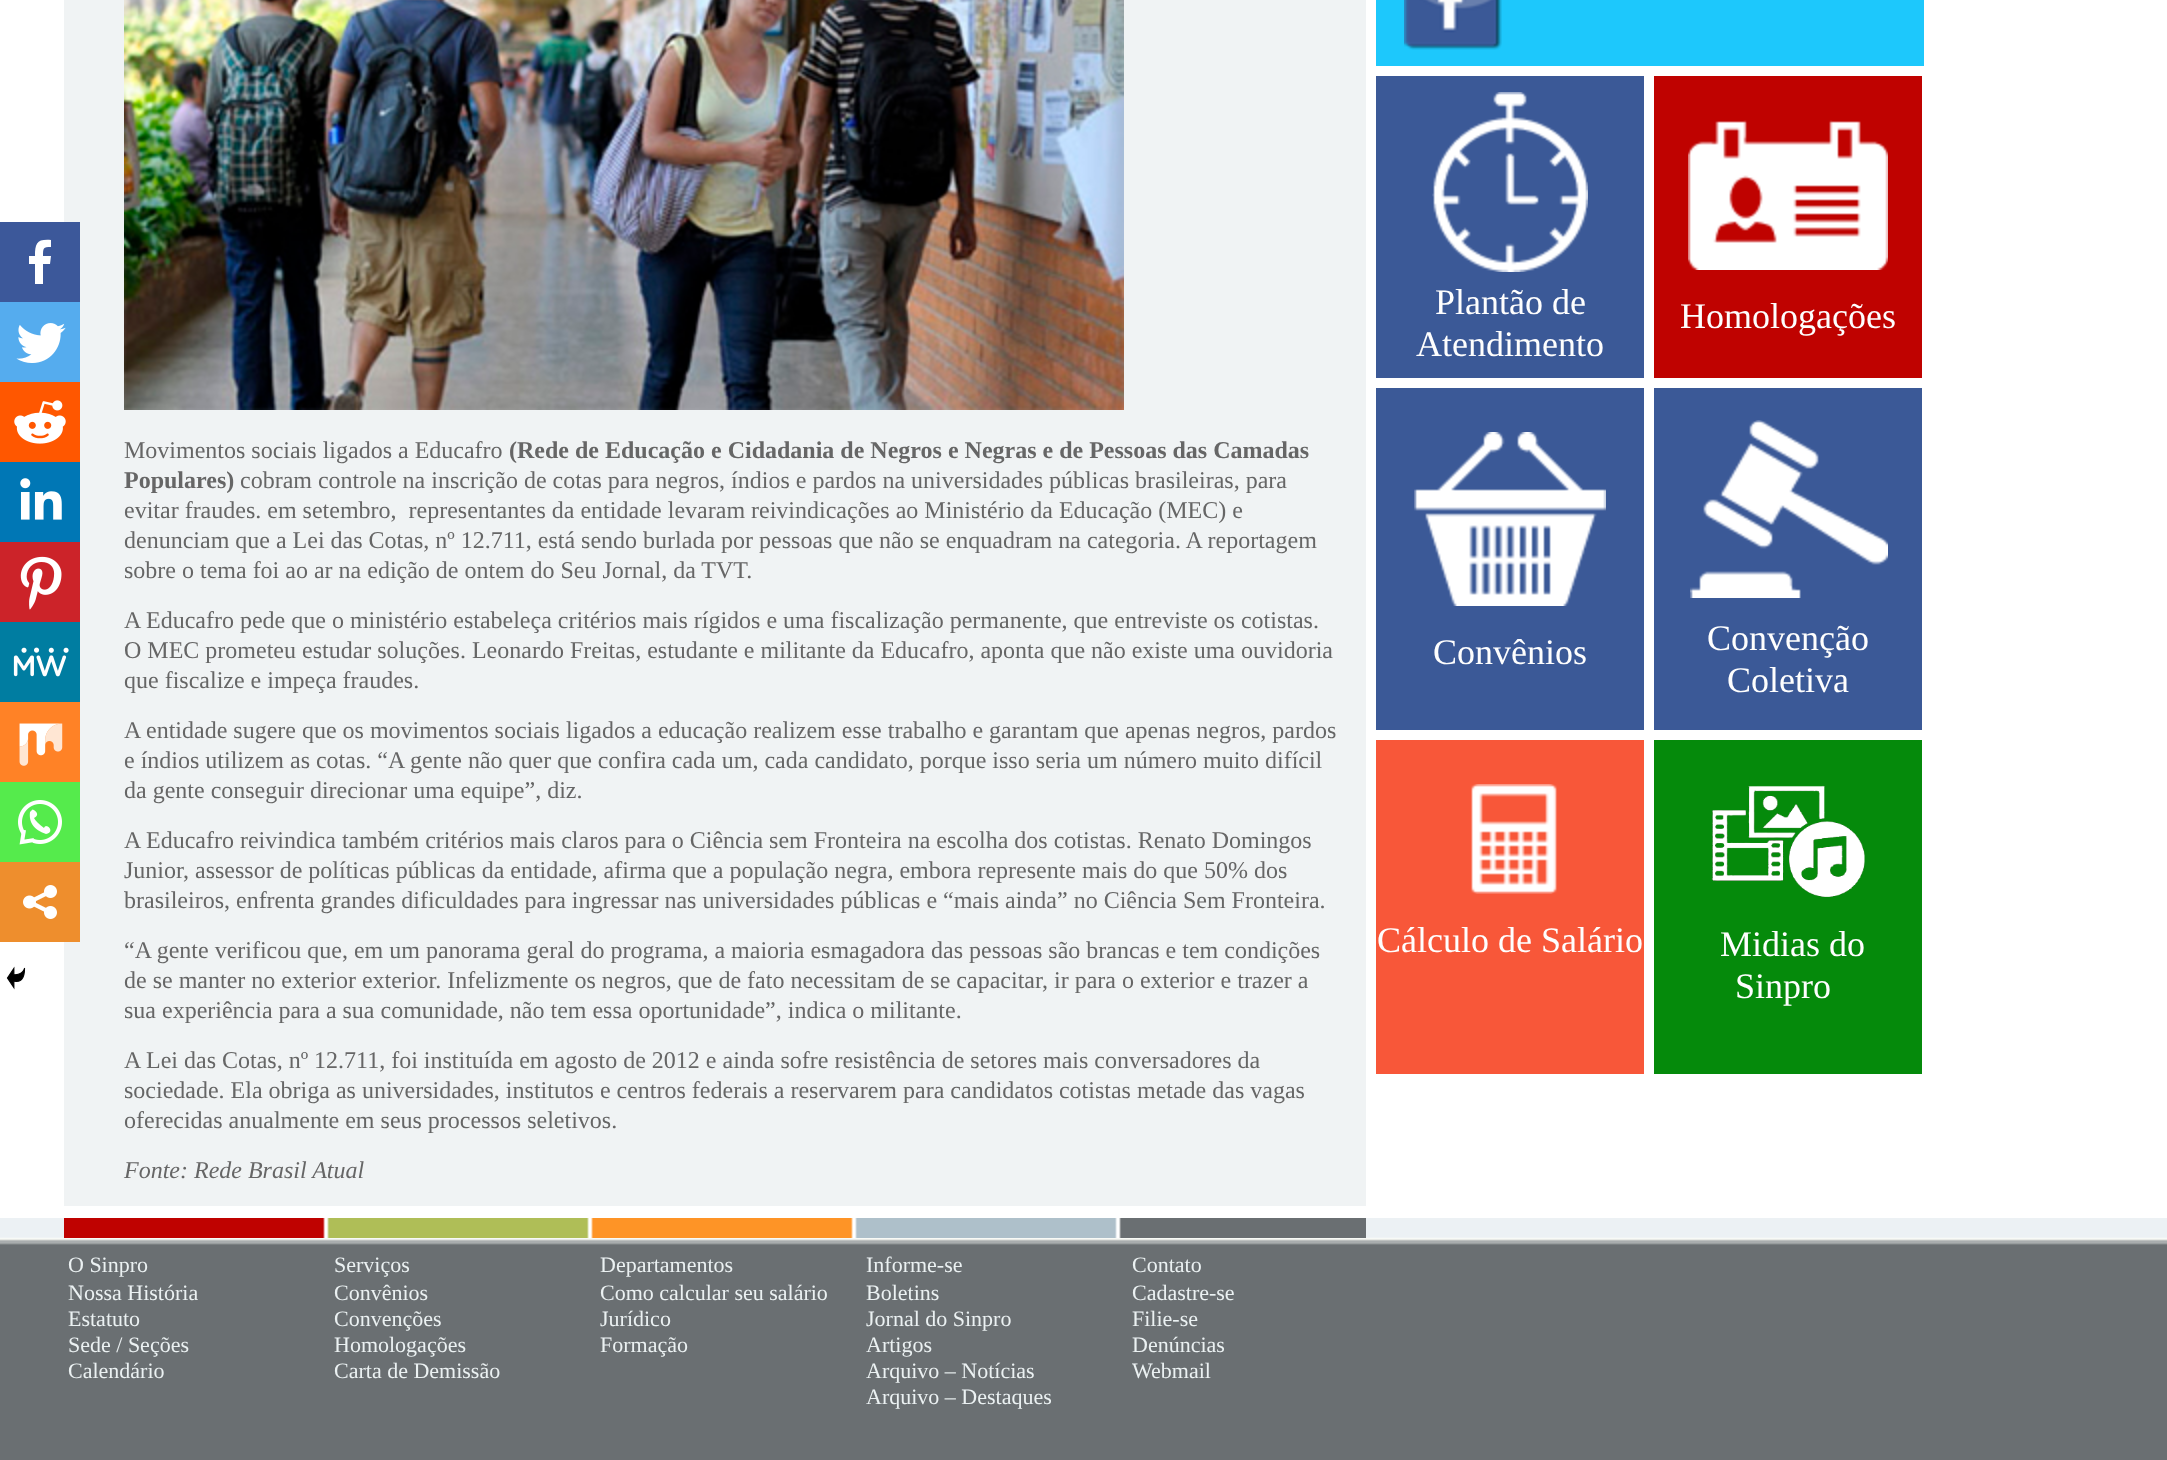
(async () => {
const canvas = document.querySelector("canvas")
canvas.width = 2167
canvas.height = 1460
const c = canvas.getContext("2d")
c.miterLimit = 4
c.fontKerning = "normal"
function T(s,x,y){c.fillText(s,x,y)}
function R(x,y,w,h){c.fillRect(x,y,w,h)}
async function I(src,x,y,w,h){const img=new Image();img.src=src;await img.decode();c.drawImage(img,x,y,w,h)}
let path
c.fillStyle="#fff"
R(0,0,2167,1460)
await I("1.png",0,1218,2167,242)
c.fillStyle="#f0f3f4"
R(64,0,1302,1206)
c.fillStyle="#3c589a"
R(0,222,80,80)
c.fillStyle="#fff"
path = new Path2D("M43 284v-20h7l1-8h-8c0-8 0-9 8-9v-7c-14-1-16 3-16 16h-6v8h6v20z")
c.fill(path)
c.fillStyle="#55acee"
R(0,302,80,80)
await I("2.png",16,323,50,40)
c.fillStyle="#ff5700"
R(0,382,80,80)
await I("3.png",14,400,52,44)
c.fillStyle="#0077b5"
R(0,462,80,80)
await I("4.png",20,478,42,42)
c.fillStyle="#cc2329"
R(0,542,80,80)
await I("5.png",20,556,42,54)
c.fillStyle="#007da1"
R(0,622,80,80)
await I("6.png",13,647,56,30)
c.fillStyle="#ff8226"
R(0,702,80,80)
await I("7.png",19,723,44,43)
c.fillStyle="#55eb4c"
R(0,782,80,80)
await I("8.png",18,800,44,45)
c.fillStyle="#ee8e2d"
R(0,862,80,80)
await I("9.png",23,885,34,34)
await I("10.png",6,966,20,24)
await I("11.png",124,0,1000,410)
c.font="24px Liberation Serif"
c.fillStyle="#666"
T("Movimentos sociais ligados a Educafro",124,458)
c.font="bold 24px Liberation Serif"
T("(Rede de Educação e Cidadania de Negros e Negras e de Pessoas das Camadas",509,458)
T("Populares)",124,488)
c.font="24px Liberation Serif"
T("cobram controle na inscrição de cotas para negros, índios e pardos na universidades públicas brasileiras, para",240,488)
T("evitar fraudes. em setembro,  representantes da entidade levaram reivindicações ao Ministério da Educação (MEC) e",124,518)
T("denunciam que a Lei das Cotas, nº 12.711, está sendo burlada por pessoas que não se enquadram na categoria. A reportagem",124,548)
T("sobre o tema foi ao ar na edição de ontem do Seu Jornal, da TVT.",124,578)
T("A Educafro pede que o ministério estabeleça critérios mais rígidos e uma fiscalização permanente, que entreviste os cotistas.",124,628)
T("O MEC prometeu estudar soluções. Leonardo Freitas, estudante e militante da Educafro, aponta que não existe uma ouvidoria",124,658)
T("que fiscalize e impeça fraudes.",124,688)
T("A entidade sugere que os movimentos sociais ligados a educação realizem esse trabalho e garantam que apenas negros, pardos",124,738)
T("e índios utilizem as cotas. “A gente não quer que confira cada um, cada candidato, porque isso seria um número muito difícil",124,768)
T("da gente conseguir direcionar uma equipe”, diz.",124,798)
T("A Educafro reivindica também critérios mais claros para o Ciência sem Fronteira na escolha dos cotistas. Renato Domingos",124,848)
T("Junior, assessor de políticas públicas da entidade, afirma que a população negra, embora represente mais do que 50% dos",124,878)
T("brasileiros, enfrenta grandes dificuldades para ingressar nas universidades públicas e “mais ainda” no Ciência Sem Fronteira.",124,908)
T("“A gente verificou que, em um panorama geral do programa, a maioria esmagadora das pessoas são brancas e tem condições",124,958)
T("de se manter no exterior exterior. Infelizmente os negros, que de fato necessitam de se capacitar, ir para o exterior e trazer a",124,988)
T("sua experiência para a sua comunidade, não tem essa oportunidade”, indica o militante.",124,1018)
T("A Lei das Cotas, nº 12.711, foi instituída em agosto de 2012 e ainda sofre resistência de setores mais conversadores da",124,1068)
T("sociedade. Ela obriga as universidades, institutos e centros federais a reservarem para candidatos cotistas metade das vagas",124,1098)
T("oferecidas anualmente em seus processos seletivos.",124,1128)
c.font="italic 24px Liberation Serif"
T("Fonte: Rede Brasil Atual",124,1178)
c.fillStyle="#1dc8fc"
R(1376,0,548,66)
await I("12.png",1404,0,98,50)
c.fillStyle="#3b5997"
R(1376,76,268,302)
await I("13.png",1432,92,156,180)
c.font="36px Liberation Serif"
c.fillStyle="#fefefe"
T("Plantão de",1435,314)
T("Atendimento",1416,356)
c.fillStyle="#bf0200"
R(1654,76,268,302)
await I("14.png",1688,120,200,150)
c.fillStyle="#fefefe"
T("Homologações",1680,328)
c.fillStyle="#3b5997"
R(1376,388,268,342)
await I("15.png",1414,432,192,174)
c.fillStyle="#fefefe"
T("Convênios",1433,664)
c.fillStyle="#3b5997"
R(1654,388,268,342)
await I("16.png",1690,420,198,178)
c.fillStyle="#fefefe"
T("Convenção",1707,650)
T("Coletiva",1727,692)
c.fillStyle="#f85739"
R(1376,740,268,334)
await I("17.png",1471,784,86,110)
c.fillStyle="#fefefe"
T("Cálculo de Salário",1377,952)
c.fillStyle="#058a0b"
R(1654,740,268,334)
await I("18.png",1711,785,154,112)
c.fillStyle="#fefefe"
T("Midias do",1720,956)
T("Sinpro",1735,998)
await I("19.png",64,1218,1302,20)
c.font="22px Liberation Serif"
c.fillStyle="#ebf1f2"
T("O Sinpro",68,1272)
T("Nossa História",68,1300)
T("Estatuto",68,1326)
T("Sede / Seções",68,1352)
T("Calendário",68,1378)
T("Serviços",334,1272)
T("Convênios",334,1300)
T("Convenções",334,1326)
T("Homologações",334,1352)
T("Carta de Demissão",334,1378)
T("Departamentos",600,1272)
T("Como calcular seu salário",600,1300)
T("Jurídico",600,1326)
T("Formação",600,1352)
T("Informe-se",866,1272)
T("Boletins",866,1300)
T("Jornal do Sinpro",866,1326)
T("Artigos",866,1352)
T("Arquivo – Notícias",866,1378)
T("Arquivo – Destaques",866,1404)
T("Contato",1132,1272)
T("Cadastre-se",1132,1300)
T("Filie-se",1132,1326)
T("Denúncias",1132,1352)
T("Webmail",1132,1378)
})()
